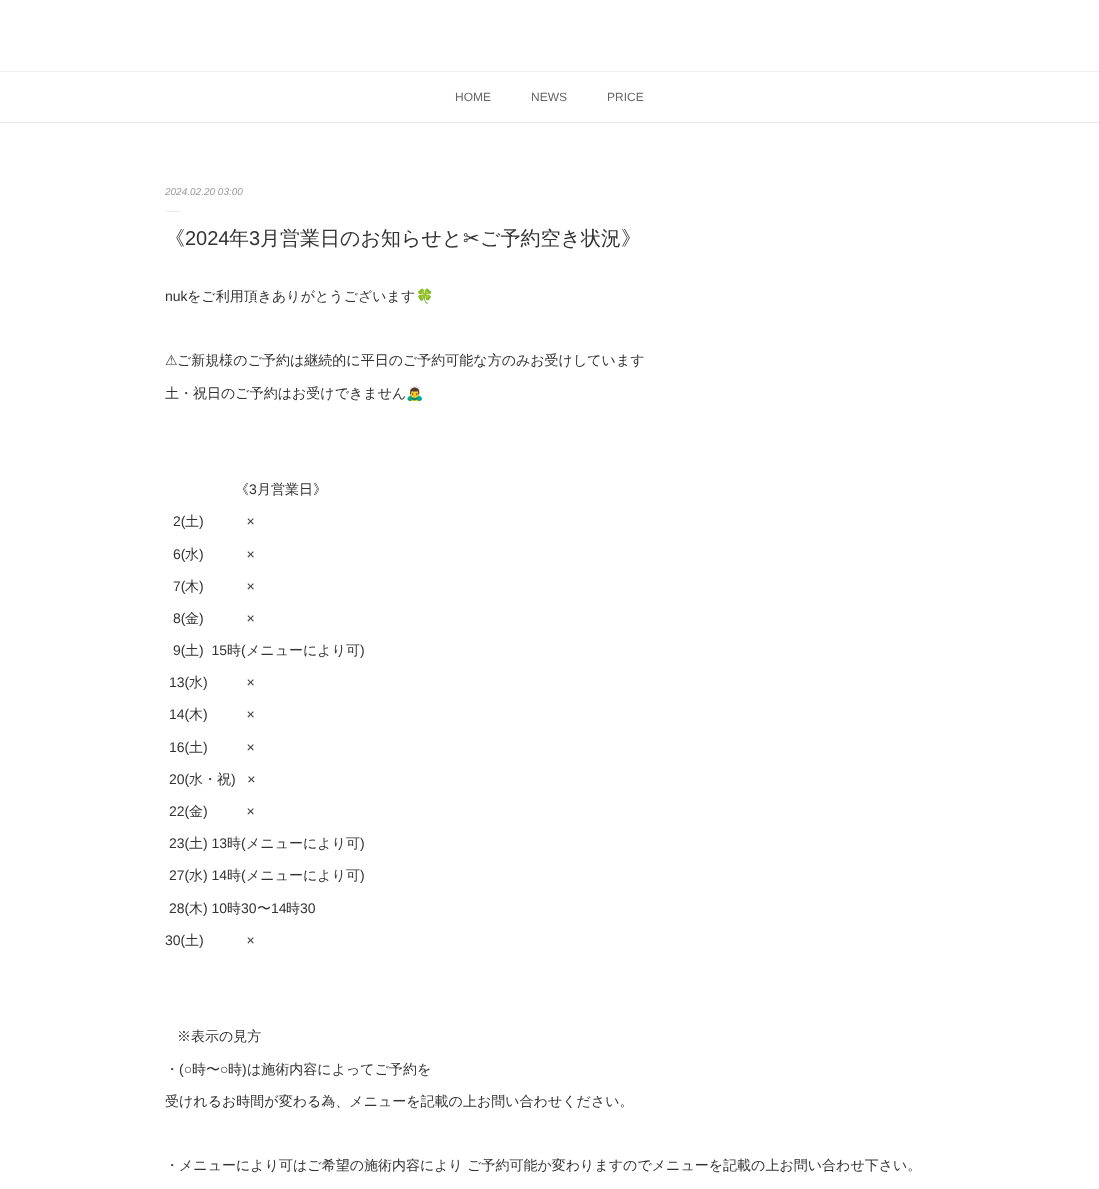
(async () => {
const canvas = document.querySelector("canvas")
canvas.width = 1099
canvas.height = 1189
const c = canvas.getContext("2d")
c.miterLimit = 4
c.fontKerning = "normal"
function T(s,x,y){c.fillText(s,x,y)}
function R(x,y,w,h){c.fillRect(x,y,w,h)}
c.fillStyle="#fff"
R(0,0,1099,1189)
c.fillStyle="#eee"
R(0,71,1099,1)
c.fillStyle="#e6e6e6"
R(0,122,1099,1)
c.font="12px Liberation Sans"
c.fillStyle="#666"
T("HOME",455,101)
T("NEWS",531,101)
T("PRICE",607,101)
c.font="italic 10px Liberation Sans"
c.fillStyle="#999"
T("2024.02.20 03:00",165,195)
c.fillStyle="#ebebeb"
R(165,211,15,1)
c.font="500 20px WenQuanYi Zen Hei"
c.fillStyle="#333"
T("《",165,245)
c.font="20px Liberation Sans"
T("2024",185,245)
c.font="500 20px WenQuanYi Zen Hei"
T("年",229,245)
c.font="20px Liberation Sans"
T("3",249,245)
c.font="500 20px WenQuanYi Zen Hei"
T("月営業日のお知らせと",260,245)
c.font="20px DejaVu Sans"
T("✂︎",463,245)
c.font="500 20px WenQuanYi Zen Hei"
T("ご予約空き状況》",480,245)
c.font="14px Liberation Sans"
T("nuk",165,301)
c.font="500 14px WenQuanYi Zen Hei"
T("をご利用頂きありがとうございます",187,301)
c.font="14px Noto Color Emoji"
T("🍀",416,301)
c.font="14px DejaVu Sans"
T("⚠︎",165,365)
c.font="500 14px WenQuanYi Zen Hei"
T("ご新規様のご予約は継続的に平日のご予約可能な方のみお受けしています",177,365)
T("土・祝日のご予約はお受けできません",165,398)
c.font="14px Noto Color Emoji"
T("🙇‍♂️",406,398)
c.font="500 14px WenQuanYi Zen Hei"
T("《",235,494)
c.font="14px Liberation Sans"
T("3",249,494)
c.font="500 14px WenQuanYi Zen Hei"
T("月営業日》",257,494)
c.font="14px Liberation Sans"
T("2(",173,526)
c.font="500 14px WenQuanYi Zen Hei"
T("土",185,526)
c.font="14px Liberation Sans"
T(")           ×",199,526)
T("6(",173,559)
c.font="500 14px WenQuanYi Zen Hei"
T("水",185,559)
c.font="14px Liberation Sans"
T(")           ×",199,559)
T("7(",173,591)
c.font="500 14px WenQuanYi Zen Hei"
T("木",185,591)
c.font="14px Liberation Sans"
T(")           ×",199,591)
T("8(",173,623)
c.font="500 14px WenQuanYi Zen Hei"
T("金",185,623)
c.font="14px Liberation Sans"
T(")           ×",199,623)
T("9(",173,655)
c.font="500 14px WenQuanYi Zen Hei"
T("土",185,655)
c.font="14px Liberation Sans"
T(")  15",199,655)
c.font="500 14px WenQuanYi Zen Hei"
T("時",227,655)
c.font="14px Liberation Sans"
T("(",241,655)
c.font="500 14px WenQuanYi Zen Hei"
T("メニューにより可",246,655)
c.font="14px Liberation Sans"
T(")",360,655)
T("13(",169,687)
c.font="500 14px WenQuanYi Zen Hei"
T("水",189,687)
c.font="14px Liberation Sans"
T(")          ×",203,687)
T("14(",169,719)
c.font="500 14px WenQuanYi Zen Hei"
T("木",189,719)
c.font="14px Liberation Sans"
T(")          ×",203,719)
T("16(",169,752)
c.font="500 14px WenQuanYi Zen Hei"
T("土",189,752)
c.font="14px Liberation Sans"
T(")          ×",203,752)
T("20(",169,784)
c.font="500 14px WenQuanYi Zen Hei"
T("水・祝",189,784)
c.font="14px Liberation Sans"
T(")   ×",231,784)
T("22(",169,816)
c.font="500 14px WenQuanYi Zen Hei"
T("金",189,816)
c.font="14px Liberation Sans"
T(")          ×",203,816)
T("23(",169,848)
c.font="500 14px WenQuanYi Zen Hei"
T("土",189,848)
c.font="14px Liberation Sans"
T(") 13",203,848)
c.font="500 14px WenQuanYi Zen Hei"
T("時",227,848)
c.font="14px Liberation Sans"
T("(",241,848)
c.font="500 14px WenQuanYi Zen Hei"
T("メニューにより可",246,848)
c.font="14px Liberation Sans"
T(")",360,848)
T("27(",169,880)
c.font="500 14px WenQuanYi Zen Hei"
T("水",189,880)
c.font="14px Liberation Sans"
T(") 14",203,880)
c.font="500 14px WenQuanYi Zen Hei"
T("時",227,880)
c.font="14px Liberation Sans"
T("(",241,880)
c.font="500 14px WenQuanYi Zen Hei"
T("メニューにより可",246,880)
c.font="14px Liberation Sans"
T(")",360,880)
T("28(",169,913)
c.font="500 14px WenQuanYi Zen Hei"
T("木",189,913)
c.font="14px Liberation Sans"
T(") 10",203,913)
c.font="500 14px WenQuanYi Zen Hei"
T("時",227,913)
c.font="14px Liberation Sans"
T("30",241,913)
c.font="500 14px WenQuanYi Zen Hei"
T("〜",257,913)
c.font="14px Liberation Sans"
T("14",271,913)
c.font="500 14px WenQuanYi Zen Hei"
T("時",286,913)
c.font="14px Liberation Sans"
T("30",300,913)
T("30(",165,945)
c.font="500 14px WenQuanYi Zen Hei"
T("土",185,945)
c.font="14px Liberation Sans"
T(")           ×",199,945)
c.font="500 14px WenQuanYi Zen Hei"
T("※表示の見方",177,1041)
T("・",165,1074)
c.font="14px Liberation Sans"
T("(○",179,1074)
c.font="500 14px WenQuanYi Zen Hei"
T("時〜",192,1074)
c.font="14px Liberation Sans"
T("○",220,1074)
c.font="500 14px WenQuanYi Zen Hei"
T("時",228,1074)
c.font="14px Liberation Sans"
T(")",242,1074)
c.font="500 14px WenQuanYi Zen Hei"
T("は施術内容によってご予約を",247,1074)
T("受けれるお時間が変わる為、メニューを記載の上お問い合わせください。",165,1106)
T("・メニューにより可はご希望の施術内容により ご予約可能か変わりますのでメニューを記載の上お問い合わせ下さい。",165,1170)
})()
